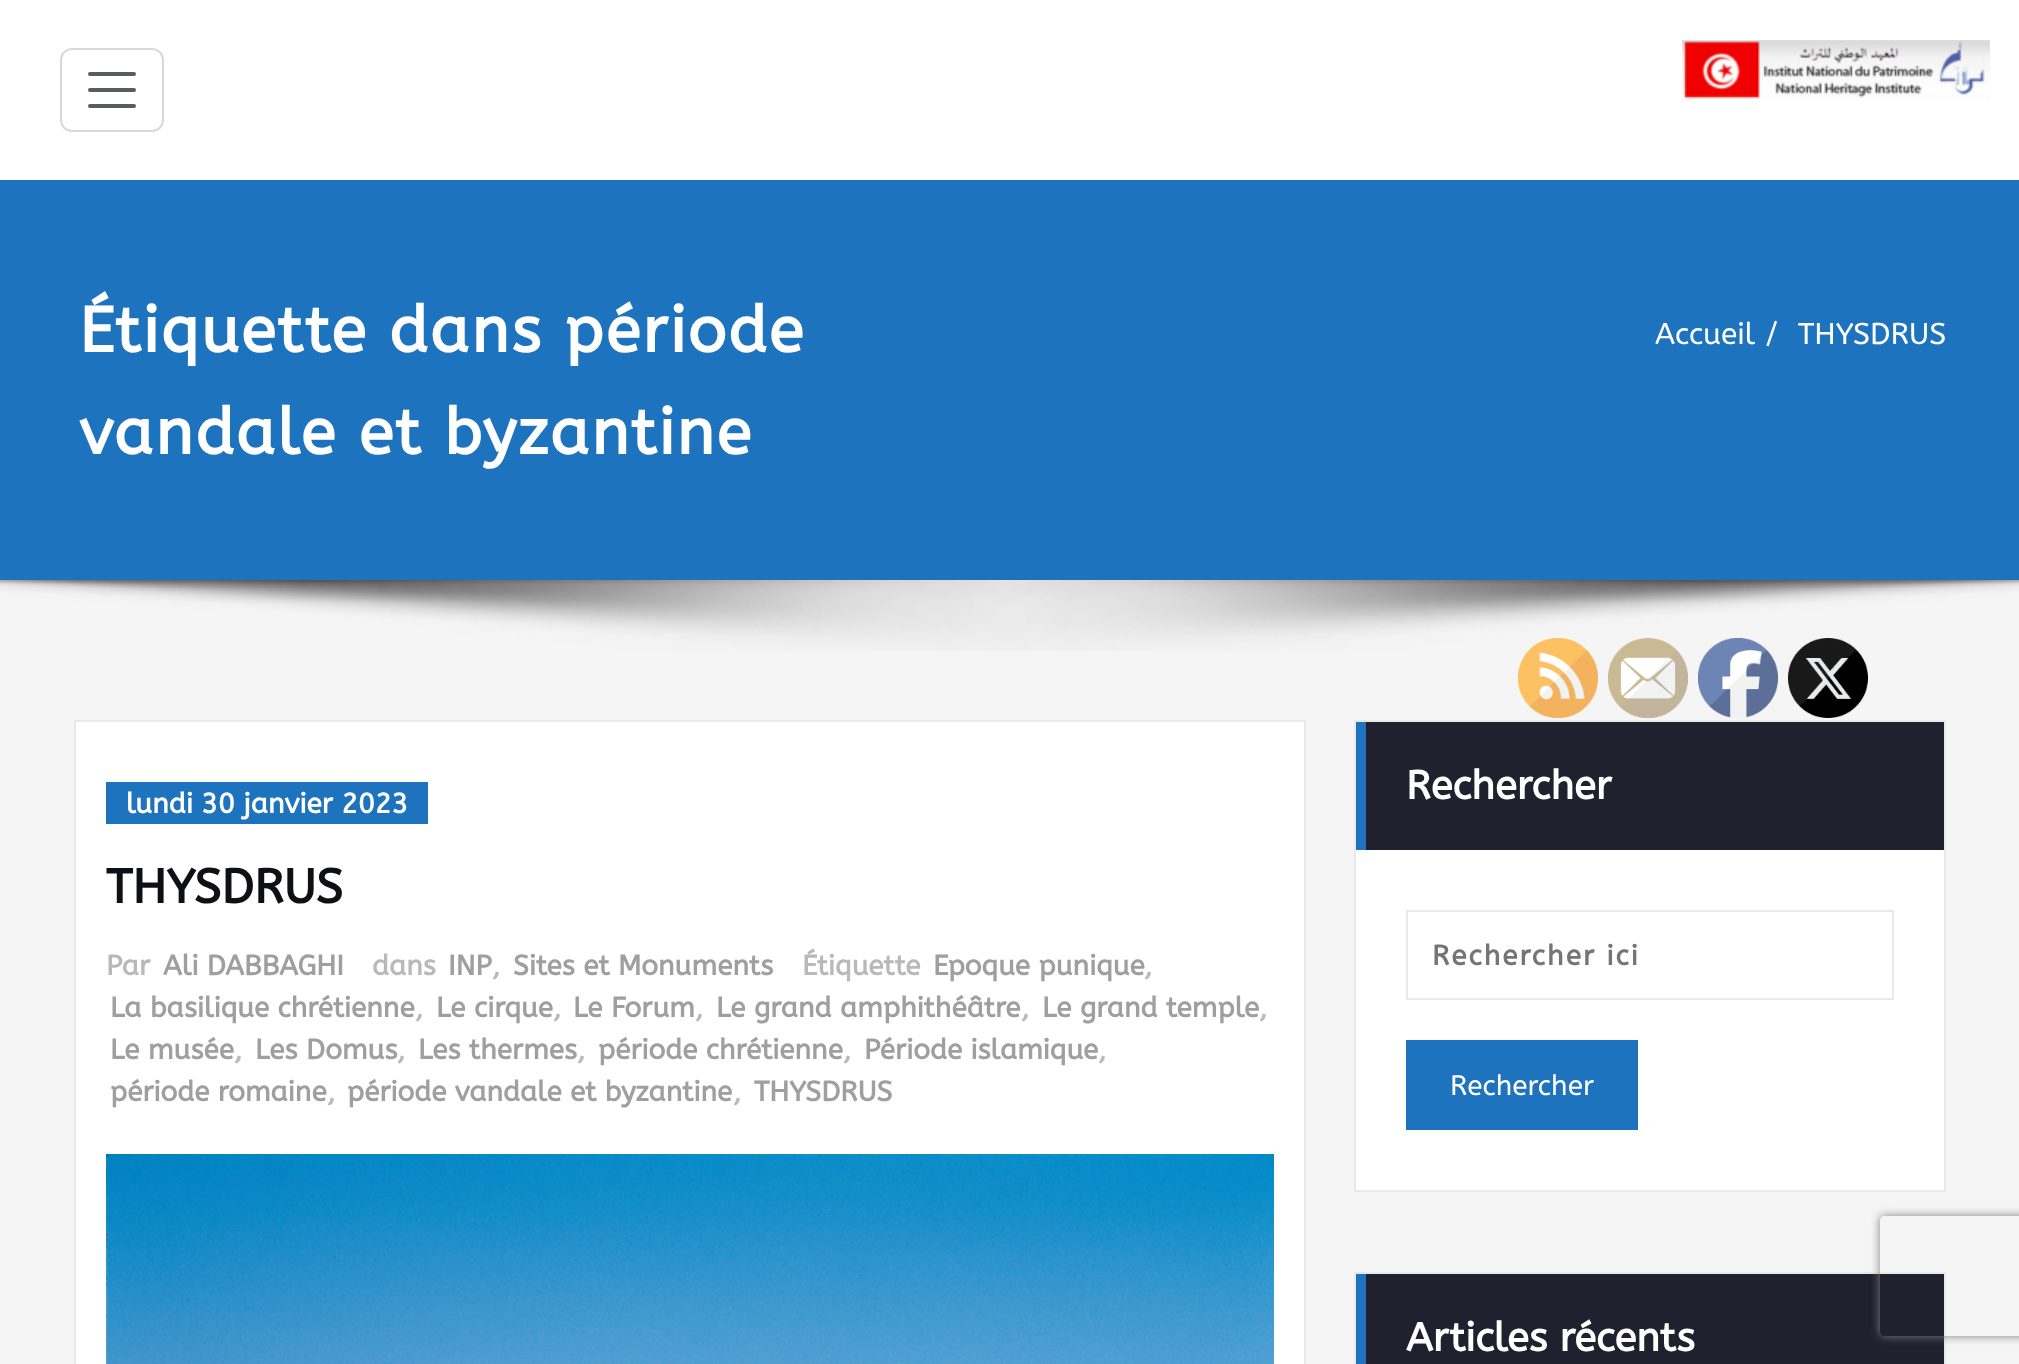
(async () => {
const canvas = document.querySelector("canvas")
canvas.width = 2019
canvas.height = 1364
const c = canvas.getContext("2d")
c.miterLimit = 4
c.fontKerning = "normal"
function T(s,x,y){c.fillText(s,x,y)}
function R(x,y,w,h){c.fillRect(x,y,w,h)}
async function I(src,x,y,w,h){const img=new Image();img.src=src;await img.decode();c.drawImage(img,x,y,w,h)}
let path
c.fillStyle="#f5f5f5"
R(0,0,2019,1364)
c.fillStyle="#fff"
R(0,0,2019,180)
c.beginPath()
c.roundRect(61,49,102,82,11)
c.strokeStyle="#d9d9d9"
c.lineWidth=2
c.stroke()
path = new Path2D("M90 74h44m-44 16h44m-44 16h44")
c.strokeStyle="#595c5f"
c.lineWidth=4
c.lineCap="round"
c.stroke(path)
await I("1.png",1682,40,308,59)
c.fillStyle="#1e73be"
R(0,180,2019,400)
c.letterSpacing="2px"
c.font="bold 64px ABeeZee"
c.fillStyle="#fff"
T("Étiquette dans période",79,352)
T("vandale et byzantine",79,454)
c.letterSpacing="0px"
c.font="30px ABeeZee"
T("Accueil",1655,344)
T("/",1765,344)
T("THYSDRUS",1798,344)
await I("2.png",0,580,2019,71)
c.beginPath()
c.rect(75,721,1230,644)
c.fill()
c.strokeStyle="#e9e9e9"
c.lineWidth=2
c.stroke()
c.fillStyle="#1e73be"
R(106,782,322,42)
c.font="bold 28px ABeeZee"
c.fillStyle="#fff"
T("lundi 30 janvier 2023",126,813)
c.font="bold 48px ABeeZee"
c.fillStyle="#0f0f16"
T("THYSDRUS",106,903)
c.font="bold 28px ABeeZee"
c.fillStyle="#b9b9b9"
T("Étiquette",802,975)
c.fillStyle="#9f9f9f"
T("Epoque punique",933,975)
c.fillStyle="#b9b9b9"
T(",",1144,975)
c.fillStyle="#9f9f9f"
T("La basilique chrétienne",110,1017)
c.fillStyle="#b9b9b9"
T(",",415,1017)
c.fillStyle="#9f9f9f"
T("Le cirque",436,1017)
c.fillStyle="#b9b9b9"
T(",",553,1017)
c.fillStyle="#9f9f9f"
T("Le Forum",573,1017)
c.fillStyle="#b9b9b9"
T(",",695,1017)
c.fillStyle="#9f9f9f"
T("Le grand amphithéâtre",716,1017)
c.fillStyle="#b9b9b9"
T(",",1021,1017)
c.fillStyle="#9f9f9f"
T("Le grand temple",1042,1017)
c.fillStyle="#b9b9b9"
T(",",1259,1017)
c.fillStyle="#9f9f9f"
T("Le musée",110,1059)
c.fillStyle="#b9b9b9"
T(",",234,1059)
c.fillStyle="#9f9f9f"
T("Les Domus",255,1059)
c.fillStyle="#b9b9b9"
T(",",397,1059)
c.fillStyle="#9f9f9f"
T("Les thermes",418,1059)
c.fillStyle="#b9b9b9"
T(",",577,1059)
c.fillStyle="#9f9f9f"
T("période chrétienne",598,1059)
c.fillStyle="#b9b9b9"
T(",",843,1059)
c.fillStyle="#9f9f9f"
T("Période islamique",864,1059)
c.fillStyle="#b9b9b9"
T(",",1098,1059)
c.fillStyle="#9f9f9f"
T("période romaine",110,1101)
c.fillStyle="#b9b9b9"
T(",",327,1101)
c.fillStyle="#9f9f9f"
T("période vandale et byzantine",347,1101)
c.fillStyle="#b9b9b9"
T(",",733,1101)
c.fillStyle="#9f9f9f"
T("THYSDRUS",754,1101)
c.fillStyle="#b9b9b9"
T("Par",106,975)
c.fillStyle="#9f9f9f"
T("Ali DABBAGHI",163,975)
c.fillStyle="#b9b9b9"
T("dans",372,975)
c.fillStyle="#9f9f9f"
T("INP",448,975)
T("Sites et Monuments",513,975)
c.fillStyle="#b9b9b9"
T(",",492,975)
await I("3.png",106,1154,1168,210)
c.fillStyle="#fff"
R(1356,850,588,340)
c.strokeRect(1355,721,590,470)
c.fillStyle="#21202e"
R(1366,722,578,128)
c.fillStyle="#1e73be"
R(1356,722,10,128)
c.font="bold 40px ABeeZee"
c.fillStyle="#fff"
T("Rechercher",1406,799)
c.strokeRect(1407,911,486,88)
c.letterSpacing="2px"
c.font="bold 28px ABeeZee"
c.fillStyle="#757575"
T("Rechercher ici",1432,965)
c.fillStyle="#1e73be"
R(1406,1040,232,90)
c.letterSpacing="0px"
c.font="28px ABeeZee"
c.fillStyle="#fff"
T("Rechercher",1450,1095)
c.strokeRect(1355,1273,590,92)
c.fillStyle="#21202e"
R(1366,1274,578,90)
c.fillStyle="#1e73be"
R(1356,1274,10,90)
c.font="bold 40px ABeeZee"
c.fillStyle="#fff"
T("Articles récents",1406,1351)
await I("4.png",1518,638,80,80)
await I("5.png",1608,638,80,80)
await I("6.png",1698,638,80,80)
await I("7.png",1788,638,80,80)
c.save()
path = new Path2D("M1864 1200h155v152h-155zm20 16h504c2 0 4 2 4 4v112c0 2-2 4-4 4h-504c-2 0-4-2-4-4v-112c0-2 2-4 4-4z")
c.clip(path,"evenodd")
c.fillStyle="#808080"
c.filter="blur(5px)"
c.beginPath()
c.roundRect(1880,1216,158,120,4)
c.fill()
c.filter="none"
c.restore()
})()
